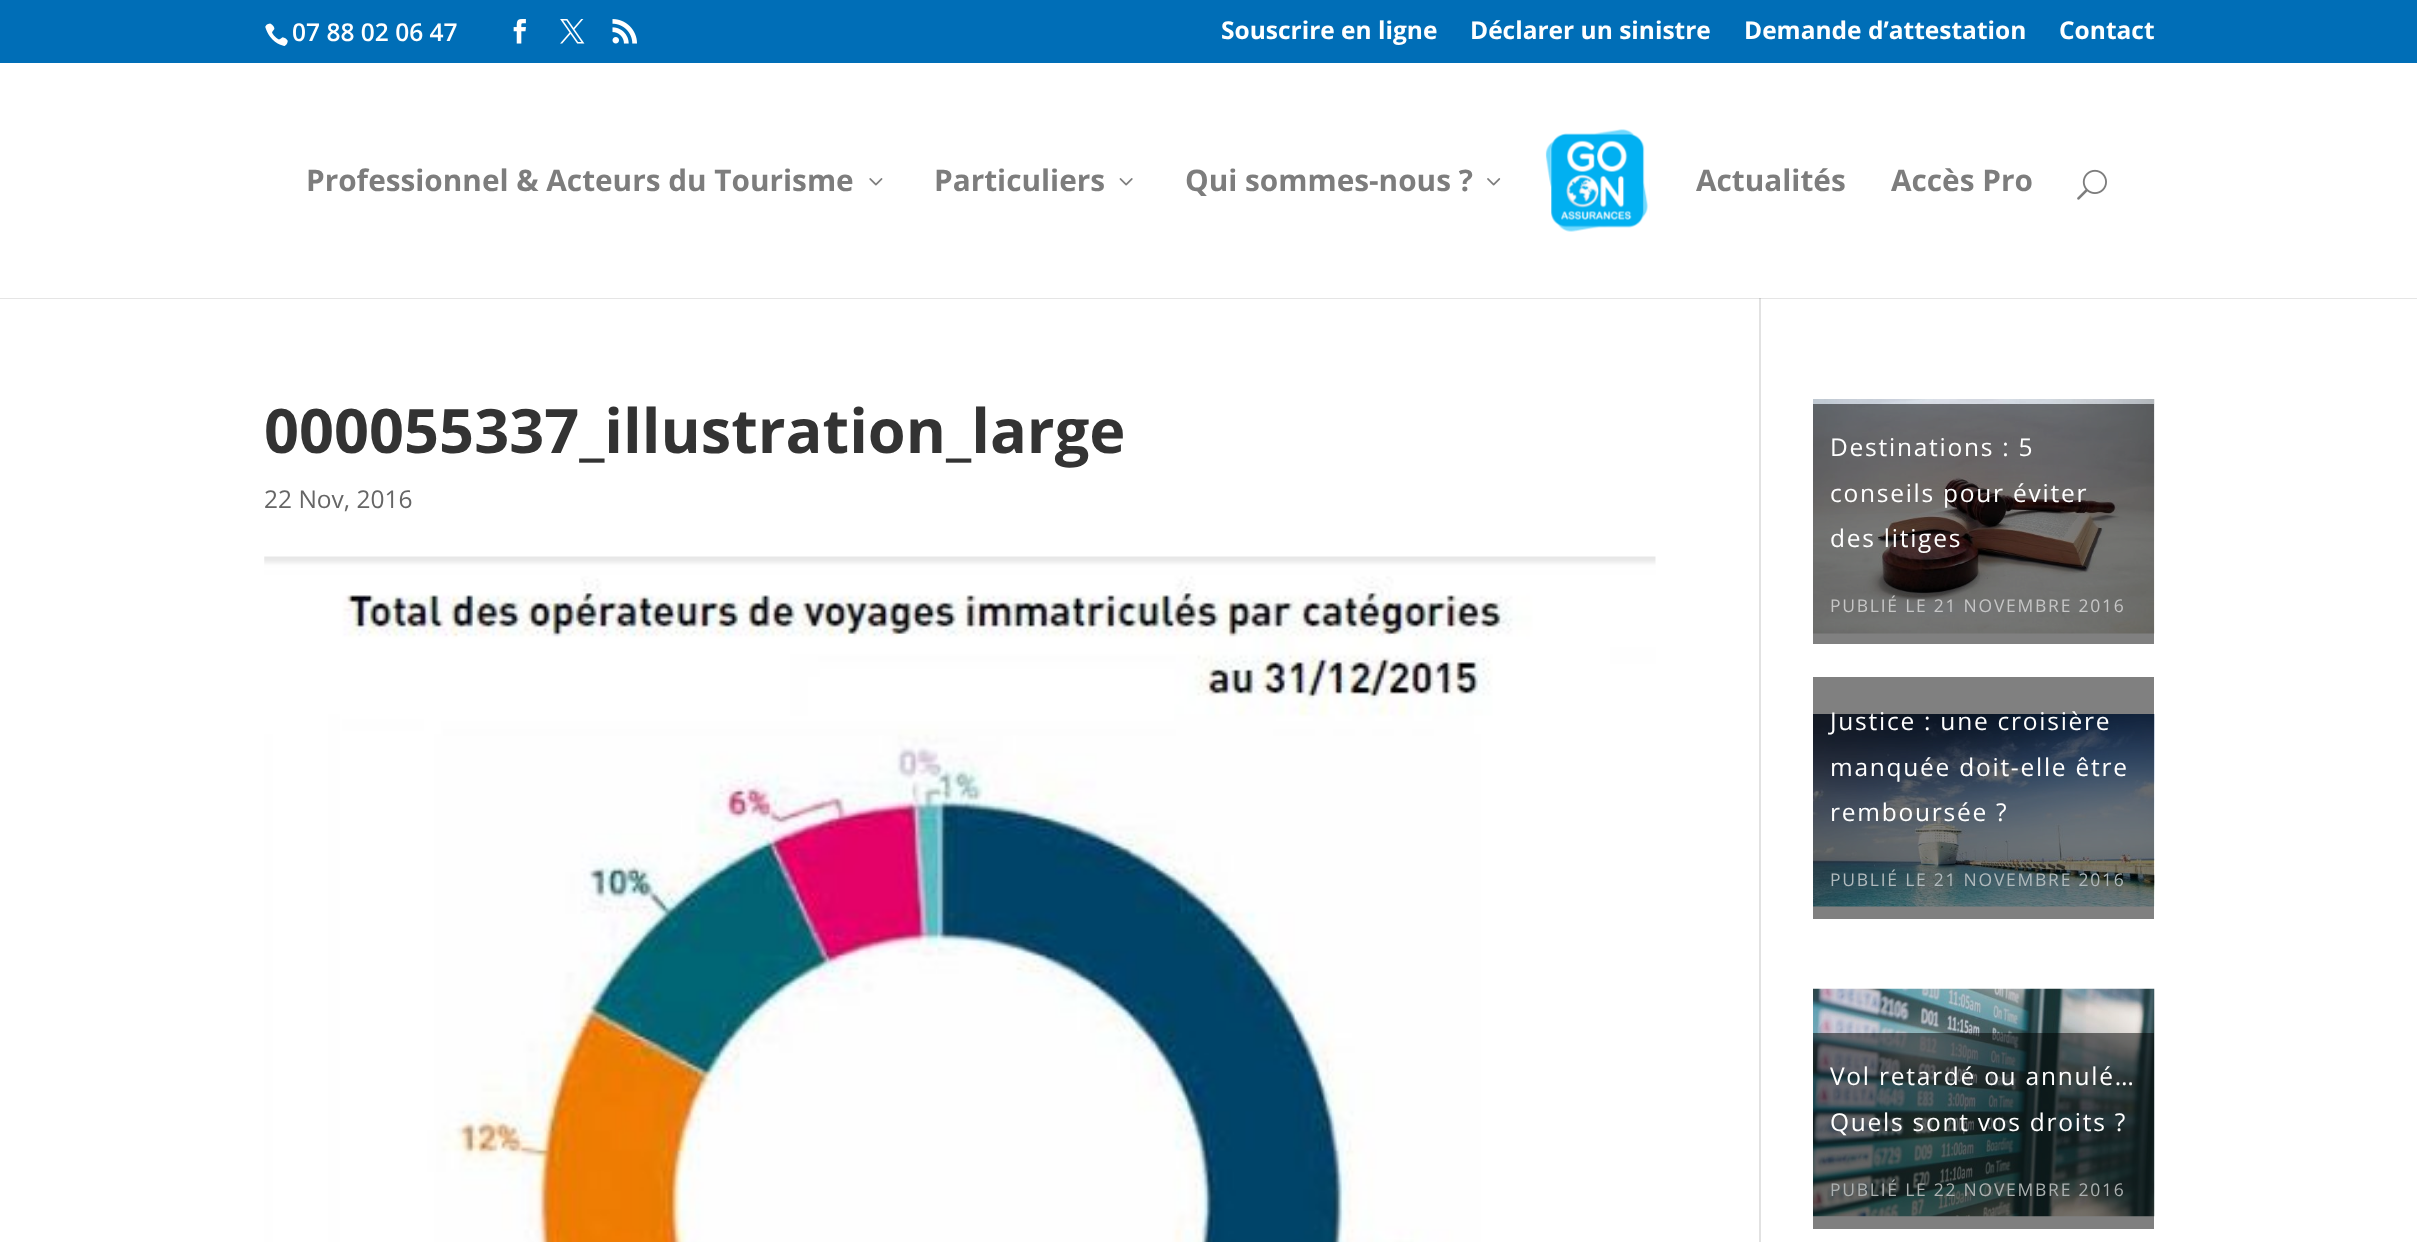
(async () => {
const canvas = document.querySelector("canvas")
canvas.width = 2417
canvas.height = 1242
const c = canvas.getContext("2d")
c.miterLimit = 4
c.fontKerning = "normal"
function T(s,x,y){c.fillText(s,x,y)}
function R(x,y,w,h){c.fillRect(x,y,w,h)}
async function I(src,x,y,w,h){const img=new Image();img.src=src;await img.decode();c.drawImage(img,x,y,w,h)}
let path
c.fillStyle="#fff"
R(0,0,2417,1242)
c.fillStyle="#808080"
R(1813,677,341,242)
R(1813,633,341,11)
c.fillStyle="#006eb7"
R(0,0,2417,63)
await I("1.png",265,23,23,23)
c.font="600 24.5px Open Sans"
c.fillStyle="#fff"
T("07 88 02 06 47",292,41)
await I("2.png",513,19,13,25)
await I("3.png",560,19,25,25)
await I("4.png",612,19,25,25)
c.font="bold 24.5px Open Sans"
T("Souscrire en ligne",1221,39)
T("Déclarer un sinistre",1470,39)
T("Demande d’attestation",1744,39)
T("Contact",2059,39)
c.fillStyle="#e2e2e2"
R(1759,298,2,944)
c.fillStyle="#0000001a"
path = new Path2D("M0 298v1h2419v-234h-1v233z")
c.fill(path)
c.font="bold 29.75px Open Sans"
c.fillStyle="#7d7d7d"
T("Professionnel & Acteurs du Tourisme",306,191)
await I("5.png",869,178,14,8)
T("Particuliers",934,191)
await I("6.png",1119,178,14,8)
T("Qui sommes-nous ?",1185,191)
await I("7.png",1487,178,14,8)
await I("8.png",1545,129,105,103)
T("Actualités",1696,191)
T("Accès Pro",1891,191)
await I("9.png",2077,169,30,31)
c.font="bold 61.25px Open Sans"
c.fillStyle="#333"
T("000055337_illustration_large",264,453)
c.font="24.5px Open Sans"
c.fillStyle="#666"
T("22 Nov, 2016",264,508)
await I("10.png",264,556,1392,686)
await I("11.png",1813,399,342,235)
c.letterSpacing="1.75px"
c.fillStyle="#fff"
T("Destinations : 5",1830,456)
T("conseils pour éviter",1830,502)
T("des litiges",1830,547)
c.font="17.5px Open Sans"
c.fillStyle="#c6c6c6"
T("PUBLIÉ LE 21 NOVEMBRE 2016",1830,612)
await I("12.png",1813,714,342,193)
c.font="24.5px Open Sans"
c.fillStyle="#fff"
T("Justice : une croisière",1830,730)
T("manquée doit-elle être",1830,776)
T("remboursée ?",1830,821)
c.font="17.5px Open Sans"
c.fillStyle="#b1babd"
T("PUBLIÉ LE 21 NOVEMBRE 2016",1830,886)
await I("13.png",1813,988,342,229)
c.fillStyle="#00000080"
R(1813,1033,341,196)
c.font="24.5px Open Sans"
c.fillStyle="#fff"
T("Vol retardé ou annulé…",1830,1085)
T("Quels sont vos droits ?",1830,1131)
c.font="17.5px Open Sans"
c.fillStyle="#acb1b1"
T("PUBLIÉ LE 22 NOVEMBRE 2016",1830,1196)
})()
